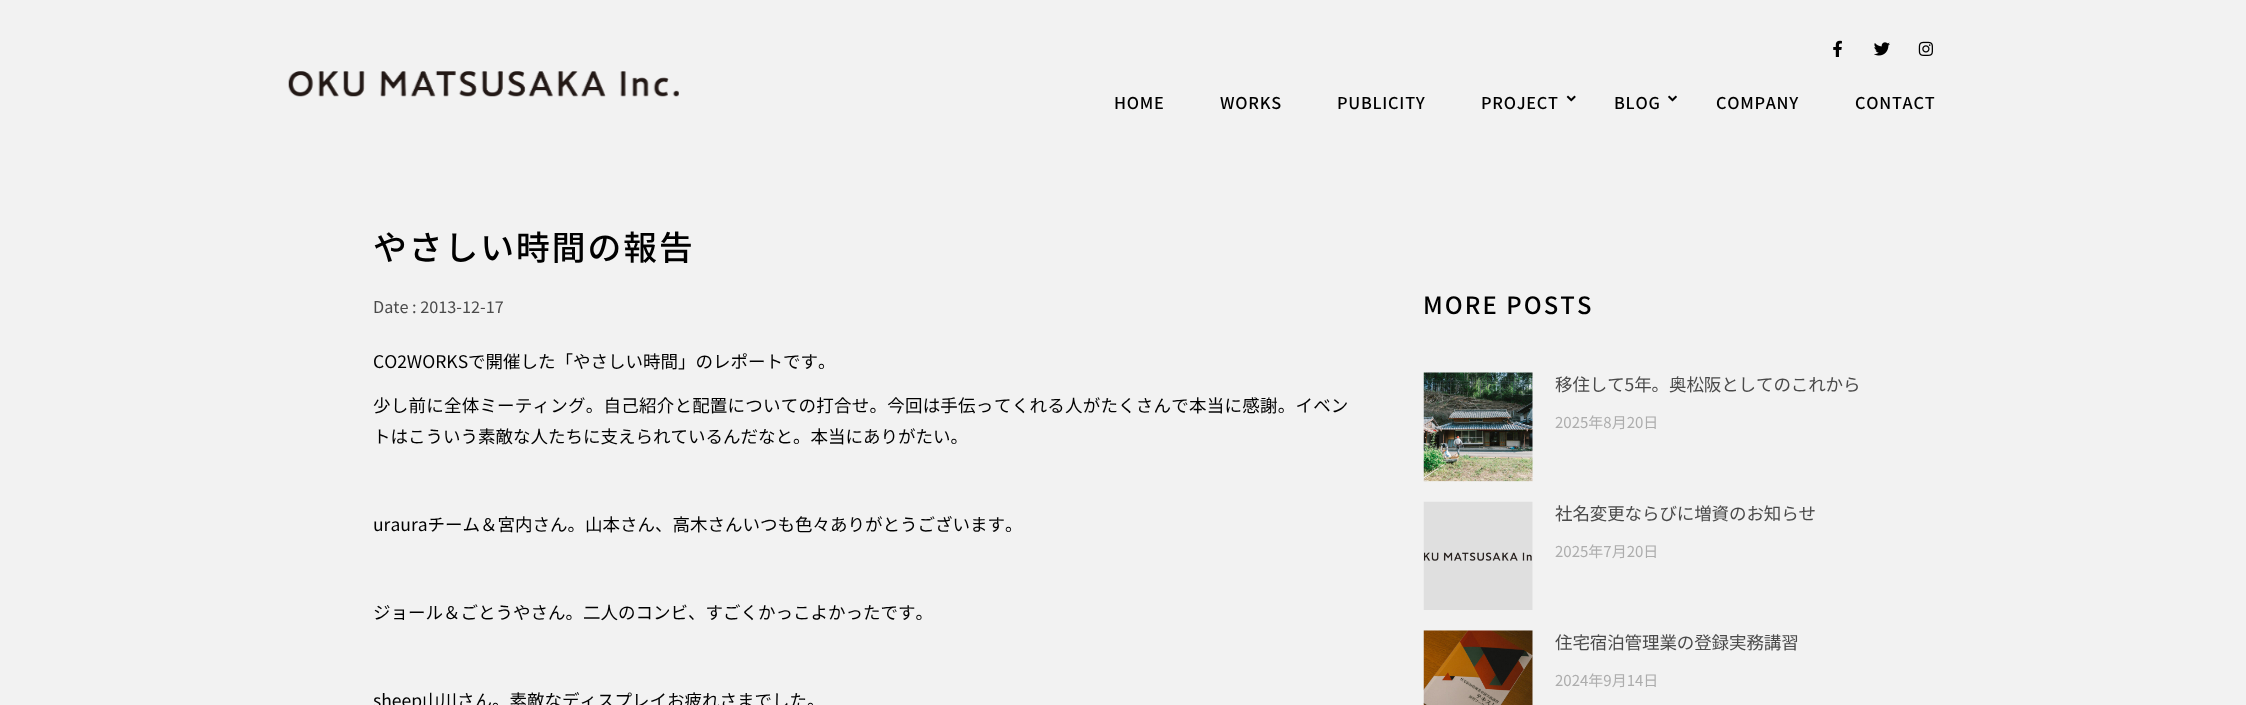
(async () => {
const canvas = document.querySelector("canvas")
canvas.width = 2246
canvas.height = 705
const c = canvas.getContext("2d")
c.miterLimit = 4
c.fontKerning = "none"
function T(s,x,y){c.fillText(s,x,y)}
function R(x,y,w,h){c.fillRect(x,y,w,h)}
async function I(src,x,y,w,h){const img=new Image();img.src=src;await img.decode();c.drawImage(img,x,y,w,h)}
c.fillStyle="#f2f2f2"
R(0,0,2246,705)
await I("1.png",1833,40,9,17)
await I("2.png",1874,42,16,14)
await I("3.png",1918,41,15,15)
await I("4.png",288,71,391,26)
c.letterSpacing="0.75px"
c.font="500 16.25px Noto Sans JP"
c.fillStyle="#000"
T("HOME",1114,109)
T("WORKS",1220,109)
T("PUBLICITY",1337,109)
T("PROJECT",1481,109)
await I("5.png",1566,95,10,7)
T("BLOG",1614,109)
await I("6.png",1668,95,9,7)
T("COMPANY",1716,109)
T("CONTACT",1855,109)
c.letterSpacing="2px"
c.font="500 33.75px Noto Sans JP"
T("やさしい時間の報告",373,260)
c.letterSpacing="0px"
c.font="16.25px Noto Sans JP"
c.fillStyle="#4a4a4a"
T("Date : 2013-12-17",373,313)
c.font="17.5px Noto Sans JP"
c.fillStyle="#000"
T("CO2WORKSで開催した「やさしい時間」のレポートです。",373,368)
c.letterSpacing="0.23px"
T("少し前に全体ミーティング。自己紹介と配置についての打合せ。今回は手伝っ",373,412)
T("てくれる人がたくさんで本当に感謝。イベン",994,412)
c.letterSpacing="0px"
T("トはこういう素敵な人たちに支えられているんだなと。本当にありがたい。",373,443)
T("urauraチーム＆宮内さん。山本さん、高木さんいつも色々ありがとうございます。",373,531)
T("ジョール＆ごとうやさん。二人のコンビ、すごくかっこよかったです。",373,619)
T("sheep山川さん。素敵なディスプレイお疲れさまでした。",373,707)
c.letterSpacing="2.1px"
c.font="500 23.75px Noto Sans JP"
T("MORE POSTS",1423,314)
await I("7.png",1423,372,110,110)
c.letterSpacing="-0.1px"
c.font="17.5px Noto Sans JP"
c.fillStyle="#4a4a4a"
T("移住して5年。奥松阪としてのこれから",1555,391)
c.letterSpacing="0px"
c.font="15px Noto Sans JP"
c.fillStyle="#adadad"
T("2025年8月20日",1555,428)
await I("8.png",1423,501,110,109)
c.letterSpacing="-0.1px"
c.font="17.5px Noto Sans JP"
c.fillStyle="#4a4a4a"
T("社名変更ならびに増資のお知らせ",1555,520)
c.letterSpacing="0px"
c.font="15px Noto Sans JP"
c.fillStyle="#adadad"
T("2025年7月20日",1555,557)
await I("9.png",1423,630,110,75)
c.letterSpacing="-0.1px"
c.font="17.5px Noto Sans JP"
c.fillStyle="#4a4a4a"
T("住宅宿泊管理業の登録実務講習",1555,649)
c.letterSpacing="0px"
c.font="15px Noto Sans JP"
c.fillStyle="#adadad"
T("2024年9月14日",1555,686)
})()
